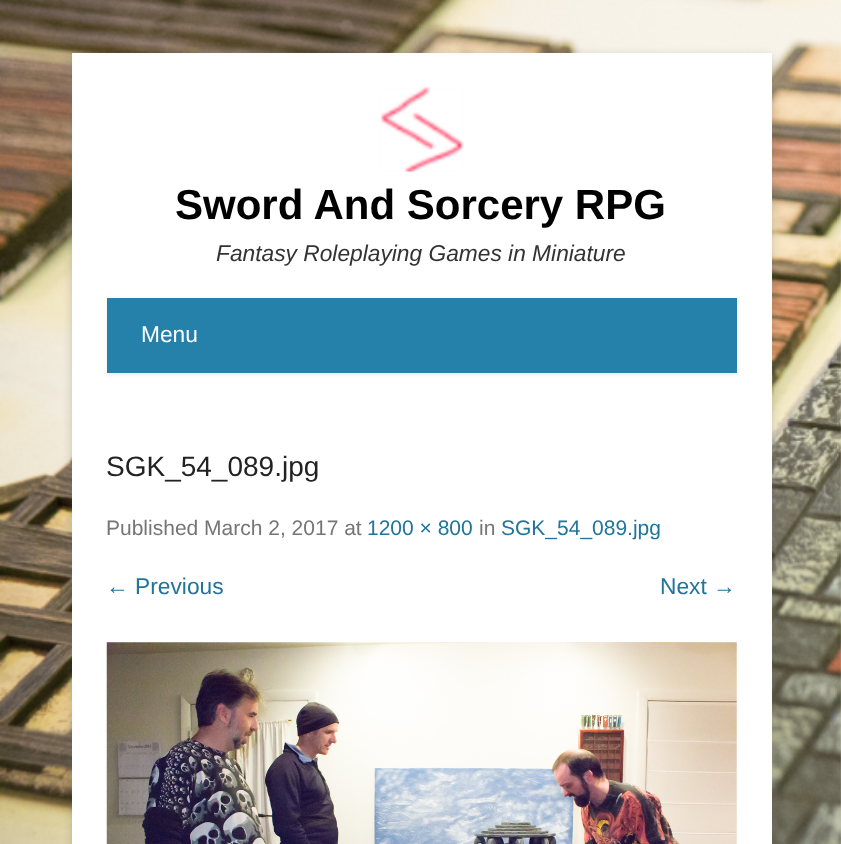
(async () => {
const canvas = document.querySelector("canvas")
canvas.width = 841
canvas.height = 844
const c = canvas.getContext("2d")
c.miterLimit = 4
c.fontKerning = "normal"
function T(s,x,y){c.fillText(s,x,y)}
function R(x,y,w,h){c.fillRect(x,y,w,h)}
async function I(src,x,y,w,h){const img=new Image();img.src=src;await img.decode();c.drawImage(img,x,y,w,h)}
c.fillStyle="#fff"
R(0,0,841,844)
await I("1.png",0,0,841,844)
c.fillStyle="#6464644d"
c.filter="blur(5px)"
c.beginPath()
c.rect(72,56,700,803)
c.fill()
c.filter="none"
c.fillStyle="#fff"
R(72,53,700,791)
await I("2.png",380,87,84,85)
c.font="bold 42px Liberation Sans"
c.fillStyle="#000"
T("Sword And Sorcery RPG",175,219)
c.font="italic 22.75px Liberation Sans"
c.fillStyle="#333"
T("Fantasy Roleplaying Games in Miniature",216,261)
c.fillStyle="#4040401a"
c.filter="blur(2px)"
c.beginPath()
c.rect(107,299,630,76)
c.fill()
c.filter="none"
c.fillStyle="#2581aa"
R(107,298,630,75)
c.font="22.75px Liberation Sans"
c.fillStyle="#fff"
T("Menu",141,342)
c.font="28px Liberation Sans"
c.fillStyle="#222"
T("SGK_54_089.jpg",106,476)
c.font="21px Liberation Sans"
c.fillStyle="#757575"
T("Published March 2, 2017 at",106,535)
c.fillStyle="#21759b"
T("1200 × 800",367,535)
c.fillStyle="#757575"
T("in",479,535)
c.fillStyle="#21759b"
T("SGK_54_089.jpg",501,535)
c.font="22.75px Liberation Sans"
T("← Previous",106,594)
T("Next →",660,594)
await I("3.png",106,642,631,202)
})()
